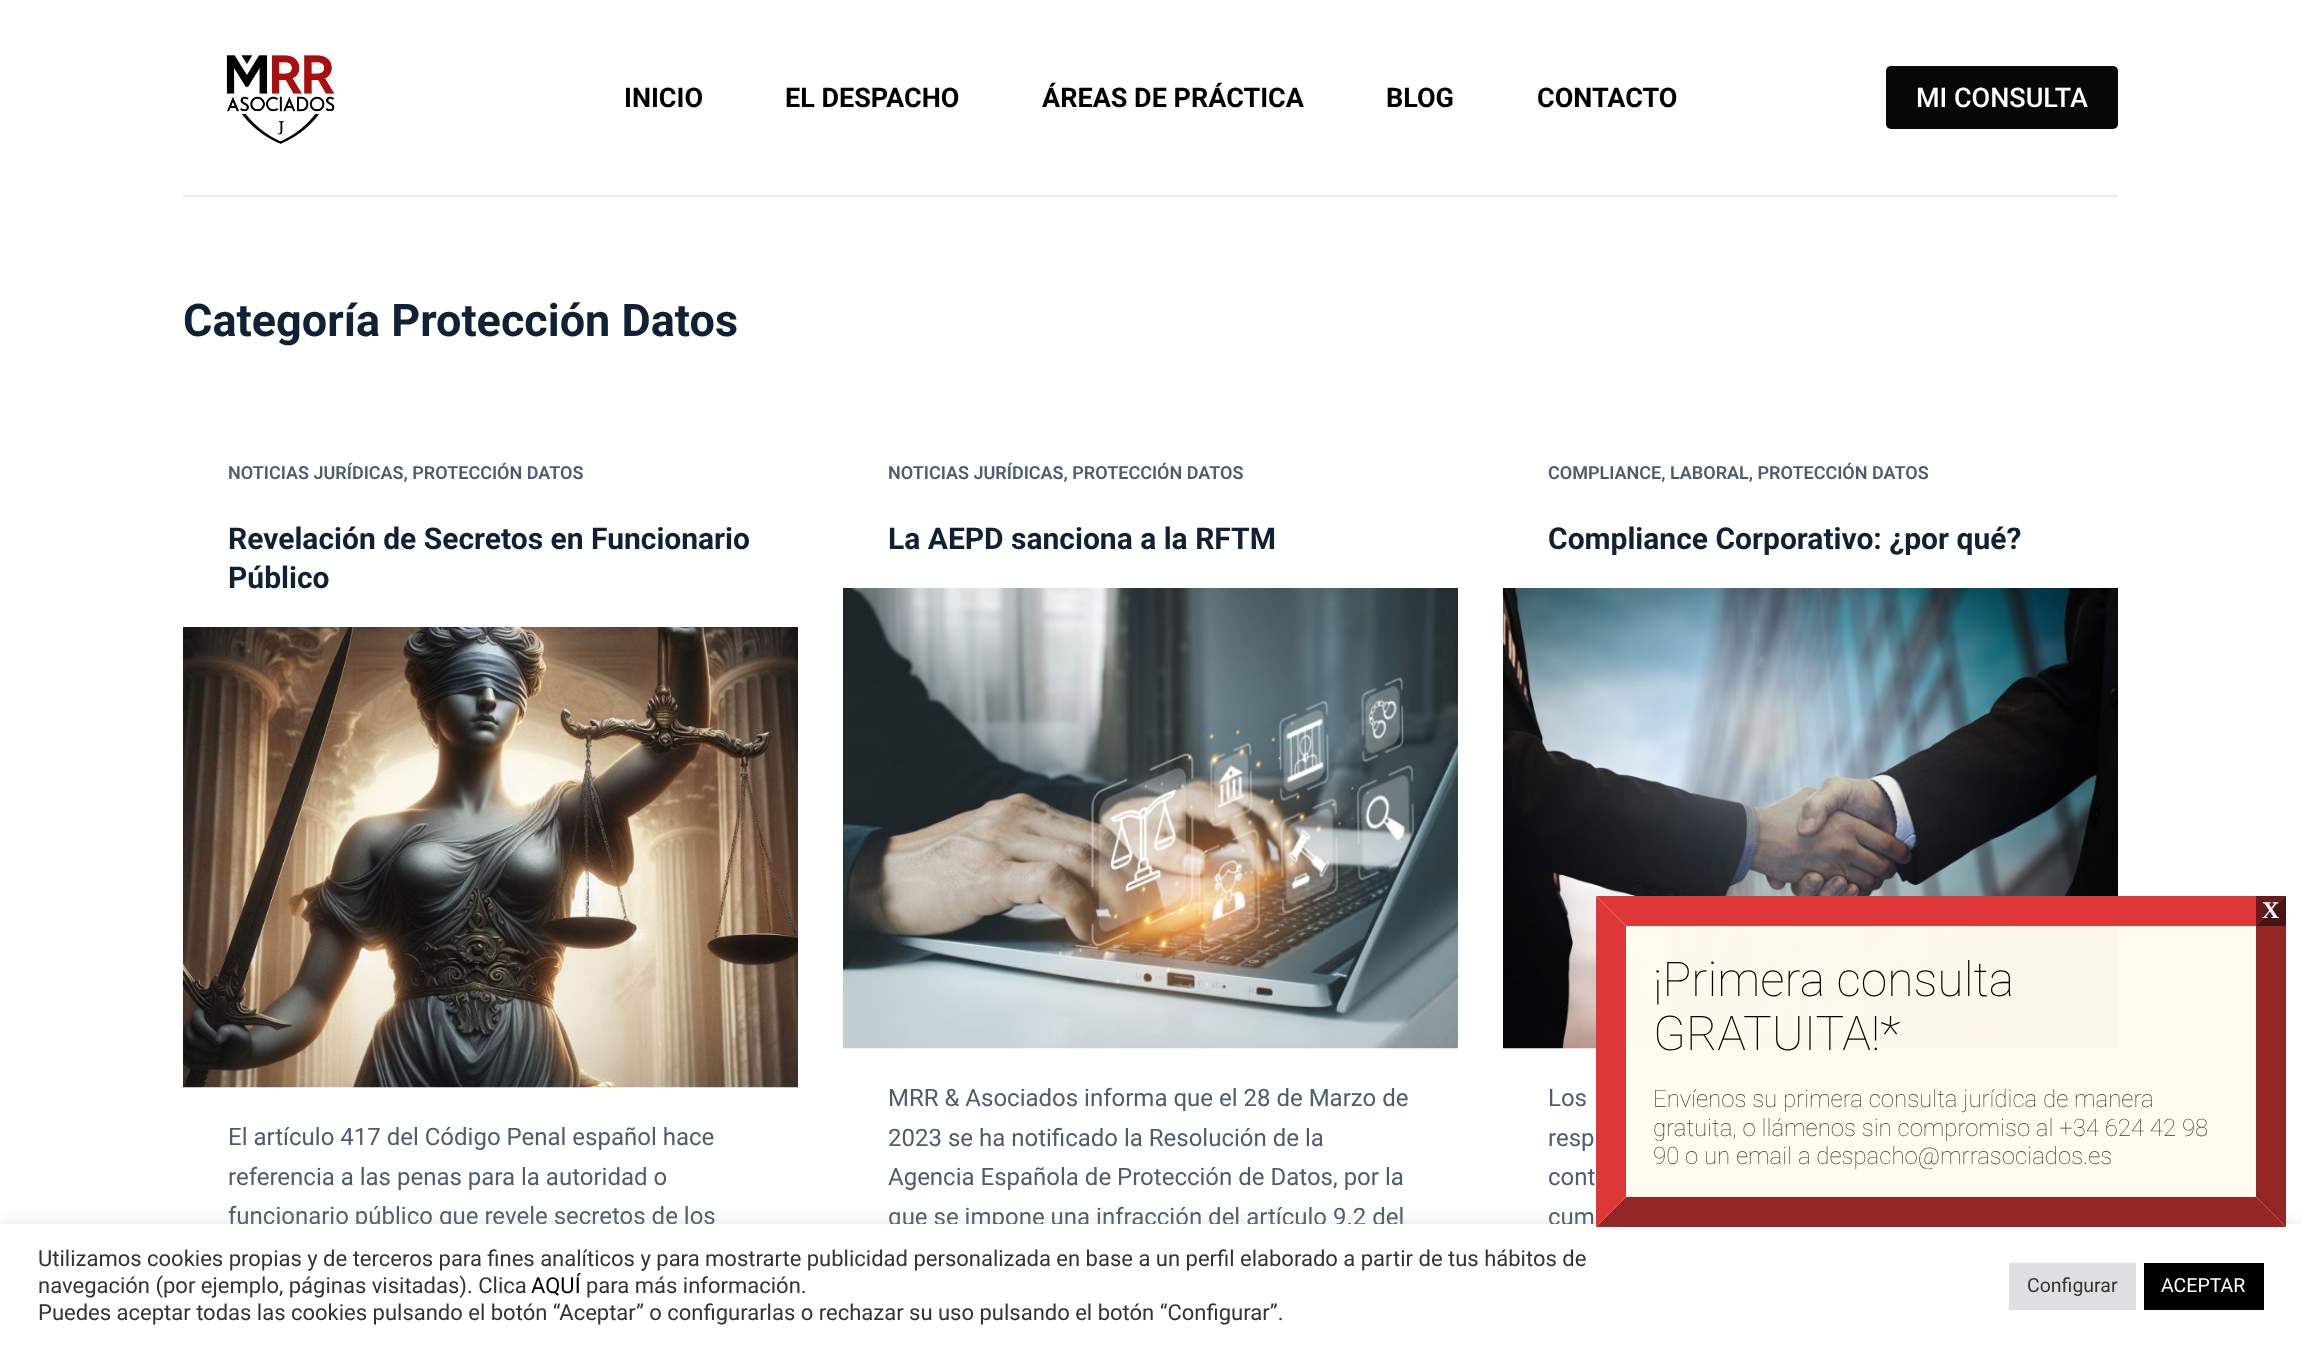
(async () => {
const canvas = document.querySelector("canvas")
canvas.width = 2301
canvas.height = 1346
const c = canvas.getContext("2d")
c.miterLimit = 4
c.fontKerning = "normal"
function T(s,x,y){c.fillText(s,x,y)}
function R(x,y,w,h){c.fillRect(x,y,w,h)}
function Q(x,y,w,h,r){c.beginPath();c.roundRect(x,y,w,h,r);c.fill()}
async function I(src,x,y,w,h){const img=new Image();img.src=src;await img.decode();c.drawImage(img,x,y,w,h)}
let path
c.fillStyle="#fff"
R(0,0,2301,1346)
c.fillStyle="#eaeced"
R(183,195,1935,2)
await I("1.png",226,55,109,89)
c.font="bold 27px Roboto"
c.fillStyle="#000"
T("INICIO",624,107)
T("EL DESPACHO",785,107)
T("ÁREAS DE PRÁCTICA",1042,107)
T("BLOG",1386,107)
T("CONTACTO",1537,107)
c.fillStyle="#070707"
Q(1886,66,232,63,5)
c.font="500 27px Roboto"
c.fillStyle="#fff"
T("MI CONSULTA",1916,107)
c.font="bold 45px Roboto"
c.fillStyle="#102136"
T("Categoría Protección Datos",183,336)
c.font="600 18px Roboto"
c.fillStyle="#4d5d6d"
T("NOTICIAS JURÍDICAS, PROTECCIÓN DATOS",228,479)
c.font="bold 30px Roboto"
c.fillStyle="#102136"
T("Revelación de Secretos en Funcionario",228,549)
T("Público",228,588)
await I("2.png",183,627,615,461)
c.font="24px Roboto"
c.fillStyle="#4d5d6d"
T("El artículo 417 del Código Penal español hace",228,1145)
T("referencia a las penas para la autoridad o",228,1185)
T("funcionario público que revele secretos de los",228,1224)
c.font="600 18px Roboto"
T("NOTICIAS JURÍDICAS, PROTECCIÓN DATOS",888,479)
c.font="bold 30px Roboto"
c.fillStyle="#102136"
T("La AEPD sanciona a la RFTM",888,549)
await I("3.png",843,588,615,461)
c.font="24px Roboto"
c.fillStyle="#4d5d6d"
T("MRR & Asociados informa que el 28 de Marzo de",888,1106)
T("2023 se ha notificado la Resolución de la",888,1146)
T("Agencia Española de Protección de Datos, por la",888,1185)
T("que se impone una infracción del artículo 9.2 del",888,1225)
c.font="600 18px Roboto"
T("COMPLIANCE, LABORAL, PROTECCIÓN DATOS",1548,479)
c.font="bold 30px Roboto"
c.fillStyle="#102136"
T("Compliance Corporativo: ¿por qué?",1548,549)
await I("4.png",1503,588,615,461)
c.font="24px Roboto"
c.fillStyle="#4d5d6d"
T("Los",1548,1106)
T("resp",1548,1146)
T("cont",1548,1185)
T("cum",1548,1225)
c.fillStyle="#acabab4d"
c.filter="blur(7.5px)"
c.beginPath()
c.rect(0,1223,2301,123)
c.fill()
c.filter="none"
c.fillStyle="#fff"
R(0,1224,2301,122)
c.fillStyle="#fffbeffa"
R(1596,896,690,331)
c.fillStyle="#dd3333fa"
path = new Path2D("M1596 896h690l-30 30h-630z")
c.fill(path)
c.fillStyle="#932222fa"
path = new Path2D("M2286 896v331l-30-30v-271z")
c.fill(path)
path = new Path2D("M2286 1227h-690l30-30h630z")
c.fill(path)
c.fillStyle="#dd3333fa"
path = new Path2D("M1596 1227v-331l30 30v271z")
c.fill(path)
c.fillStyle="#0505058c"
R(2256,896,30,30)
c.font="bold 24px Liberation Serif"
c.fillStyle="#fff"
T("X",2262,918)
c.font="100 48px Roboto"
c.fillStyle="#000"
T("¡Primera consulta",1653,996)
T("GRATUITA!*",1653,1050)
c.font="100 24px Roboto"
c.fillStyle="#333"
T("Envíenos su primera consulta jurídica de manera",1653,1107)
T("gratuita, o llámenos sin compromiso al +34 624 42 98",1653,1136)
T("90 o un email a despacho@mrrasociados.es",1653,1164)
c.font="22px Roboto"
T("Utilizamos cookies propias y de terceros para fines analíticos y para mostrarte publicidad personalizada en base a un perfil elaborado a partir de tus hábitos de",38,1266)
T("navegación (por ejemplo, páginas visitadas). Clica",38,1293)
c.fillStyle="#000"
T("AQUÍ",531,1293)
c.fillStyle="#333"
T("para más información.",586,1293)
T("Puedes aceptar todas las cookies pulsando el botón “Aceptar” o configurarlas o rechazar su uso pulsando el botón “Configurar”.",38,1320)
c.fillStyle="#dedfe0"
R(2009,1263,127,47)
c.font="19.5px Roboto"
c.fillStyle="#333"
T("Configurar",2027,1292)
c.fillStyle="#000"
R(2144,1263,120,47)
c.fillStyle="#fff"
T("ACEPTAR",2161,1292)
})()
